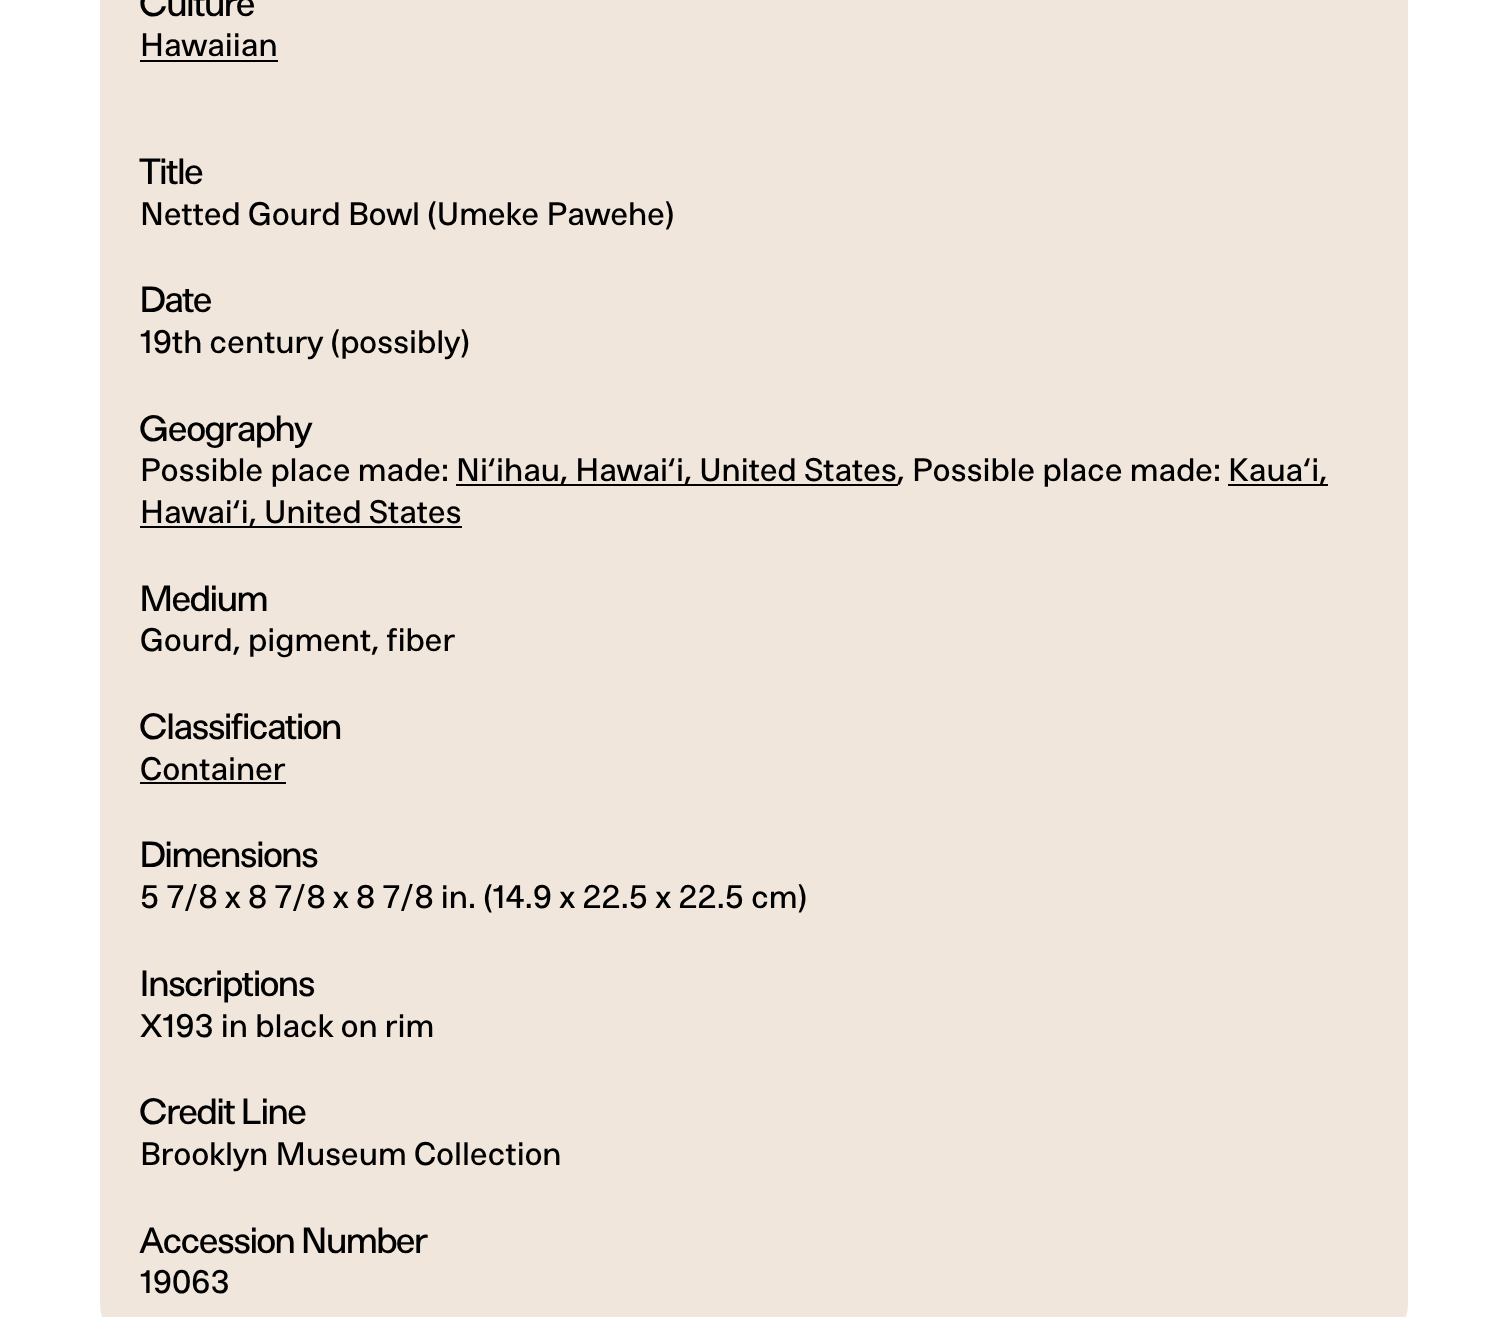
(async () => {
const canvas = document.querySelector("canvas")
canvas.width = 1508
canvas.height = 1317
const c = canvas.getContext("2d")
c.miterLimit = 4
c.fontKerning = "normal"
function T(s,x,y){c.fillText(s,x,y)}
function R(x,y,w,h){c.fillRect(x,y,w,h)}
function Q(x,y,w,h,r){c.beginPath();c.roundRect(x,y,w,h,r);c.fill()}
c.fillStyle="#fff"
R(0,0,1508,1317)
c.fillStyle="#f0e6dc"
Q(100,-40,1308,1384,40)
c.font="36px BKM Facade"
c.fillStyle="#000"
T("Culture",140,16)
c.font="32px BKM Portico"
T("Hawaiian",140,56)
R(140,60,138,2)
c.font="36px BKM Facade"
T("Title",140,184)
c.font="32px BKM Portico"
T("Netted Gourd Bowl (Umeke Pawehe)",140,225)
c.font="36px BKM Facade"
T("Date",140,312)
c.font="32px BKM Portico"
T("19th century (possibly)",140,353)
c.font="36px BKM Facade"
T("Geography",140,441)
c.font="32px BKM Portico"
T("Possible place made:",140,481)
R(456,484,442,2)
T("Ni‘ihau, Hawai‘i, United States, Possible place made:",456,481)
R(1228,484,100,2)
T("Kaua‘i,",1228,481)
R(140,526,322,2)
T("Hawai‘i, United States",140,523)
c.font="36px BKM Facade"
T("Medium",140,611)
c.font="32px BKM Portico"
T("Gourd, pigment, fiber",140,651)
c.font="36px BKM Facade"
T("Classification",140,739)
c.font="32px BKM Portico"
T("Container",140,780)
R(140,782,146,2)
c.font="36px BKM Facade"
T("Dimensions",140,867)
c.font="32px BKM Portico"
T("5 7/8 x 8 7/8 x 8 7/8 in. (14.9 x 22.5 x 22.5 cm)",140,908)
c.font="36px BKM Facade"
T("Inscriptions",140,996)
c.font="32px BKM Portico"
T("X193 in black on rim",140,1037)
c.font="36px BKM Facade"
T("Credit Line",140,1124)
c.font="32px BKM Portico"
T("Brooklyn Museum Collection",140,1165)
c.font="36px BKM Facade"
T("Accession Number",140,1253)
c.font="32px BKM Portico"
T("19063",140,1293)
})()
